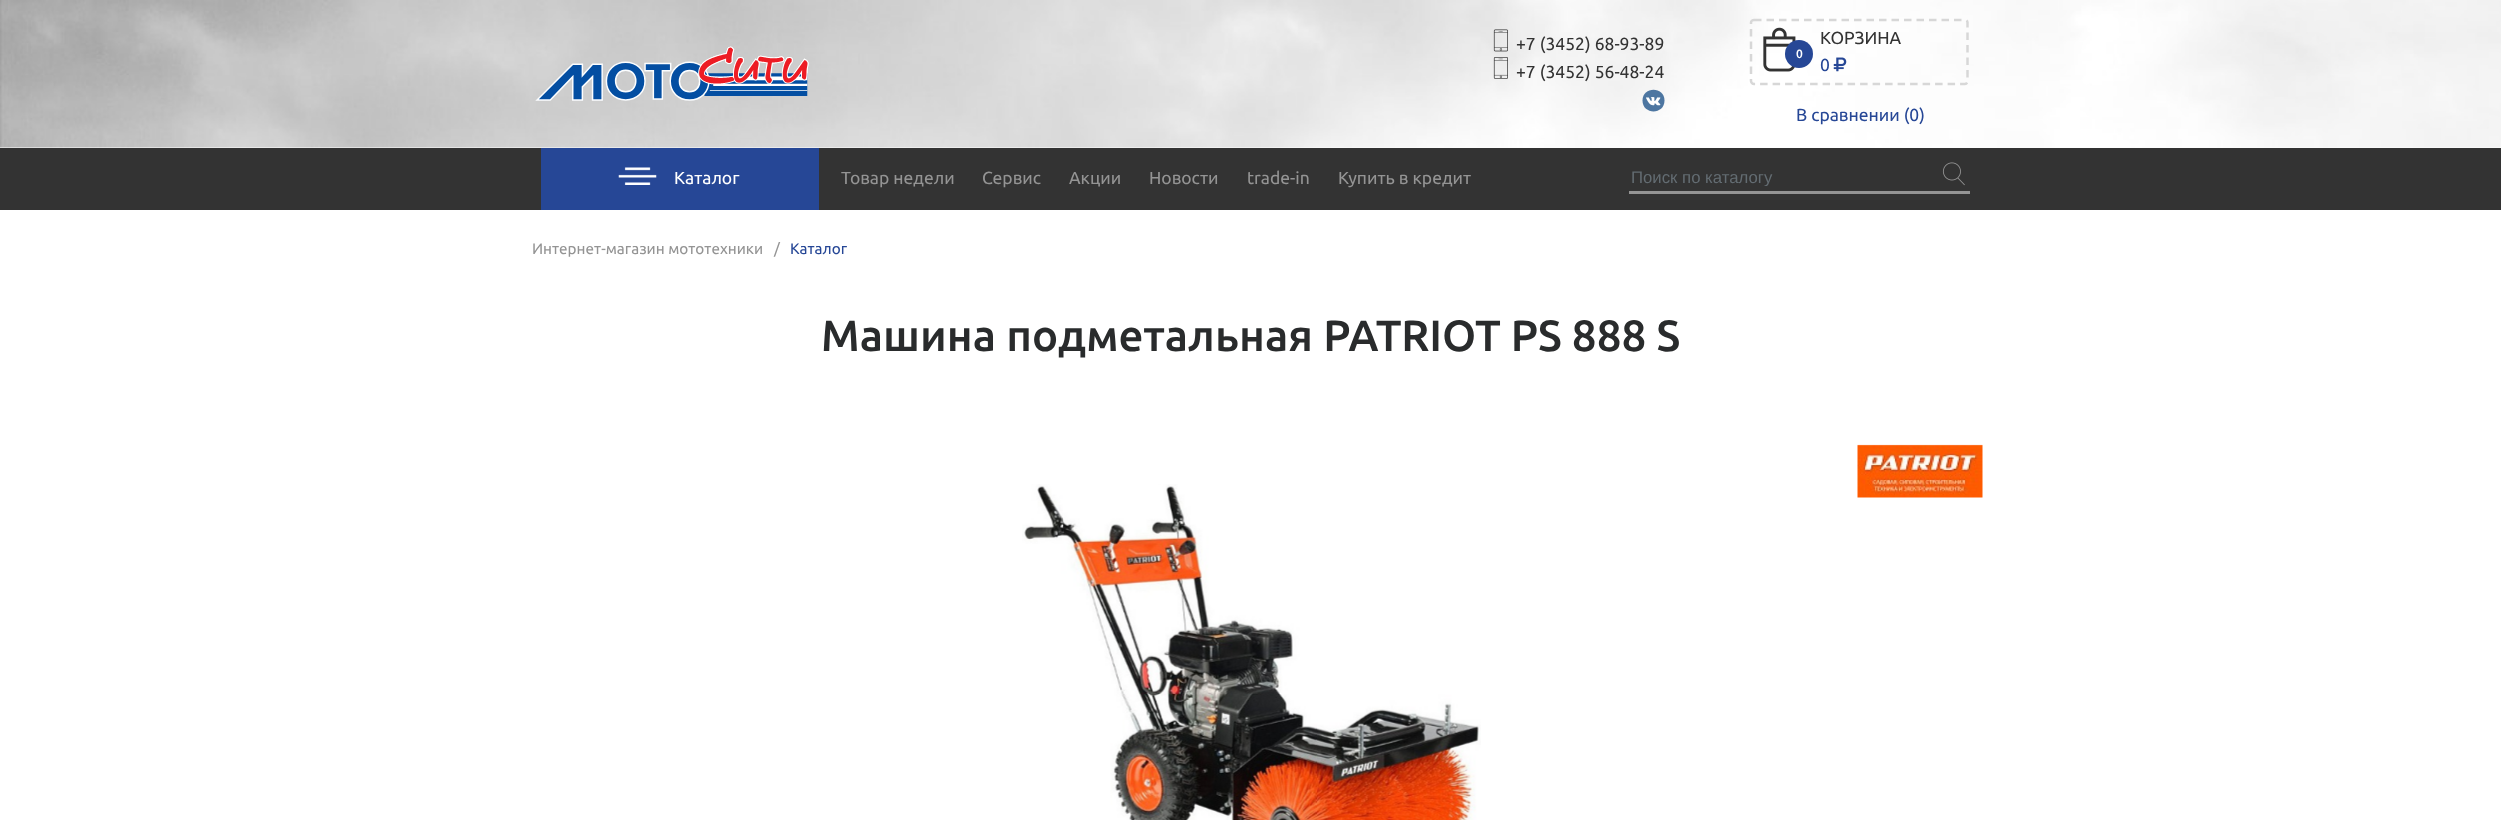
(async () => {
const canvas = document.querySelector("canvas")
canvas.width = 2501
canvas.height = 820
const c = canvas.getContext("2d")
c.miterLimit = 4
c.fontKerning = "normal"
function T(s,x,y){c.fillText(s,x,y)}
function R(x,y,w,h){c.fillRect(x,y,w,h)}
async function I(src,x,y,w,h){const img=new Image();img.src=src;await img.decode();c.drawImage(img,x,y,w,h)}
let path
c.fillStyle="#fff"
R(0,0,2501,820)
await I("1.png",0,0,2501,148)
await I("2.png",535,46,274,55)
await I("3.png",1493,29,15,23)
c.font="17.5px Ubuntu"
c.fillStyle="#333"
T("+7 (3452) 68-93-89",1516,50)
await I("4.png",1493,57,15,22)
T("+7 (3452) 56-48-24",1516,78)
c.fillStyle="#4d76a1"
path = new Path2D("M1664.5 100.5c0 14.5-22 14.5-22 0c0-14.5 22-14.5 22 0z")
c.fill(path)
await I("5.png",1646,97,15,9)
path = new Path2D("M1754 20h211c1.5 0 2.5 1 2.5 2.5v58.5c0 1.5-1 3-2.5 3h-211c-1.5 0-3-1.5-3-3v-58.5c0-1.5 1.5-2.5 3-2.5z")
c.strokeStyle="#d7d7d7"
c.lineWidth=2.5
c.setLineDash([7.5,5])
c.stroke(path)
await I("6.png",1763,27,33,45)
c.fillStyle="#264796"
c.beginPath()
c.arc(1799,54,14,0,7)
c.fill()
c.font="500 12px Ubuntu"
c.fillStyle="#fff"
T("0",1796,58)
c.font="17.5px Ubuntu"
c.fillStyle="#333"
T("КОРЗИНА",1820,44)
c.fillStyle="#264796"
T("0",1820,71)
await I("7.png",1833,57,14,15)
T("В сравнении (0)",1796,121)
c.fillStyle="#333"
R(0,148,2501,62)
c.fillStyle="#264796"
R(541,148,278,62)
await I("8.png",618,167,39,18)
c.fillStyle="#fff"
T("Каталог",674,184)
c.fillStyle="#949494"
T("Товар недели",841,184)
T("Сервис",982,184)
T("Акции",1069,184)
T("Новости",1149,184)
T("trade-in",1247,184)
T("Купить в кредит",1338,184)
R(1629,191,341,3)
c.save()
c.beginPath()
c.rect(1631,168,337,18)
c.clip()
c.font="16.75px Liberation Sans"
c.fillStyle="#636c72"
T("Поиск по каталогу",1631,183)
c.restore()
await I("9.png",1942,162,23,24)
c.font="15.25px Ubuntu"
T("Интернет-магазин мототехники",532,254)
T("/",774,254)
c.fillStyle="#264796"
T("Каталог",790,254)
c.font="500 43.75px Ubuntu"
c.fillStyle="#292b2c"
T("Машина подметальная PATRIOT PS 888 S",821,351)
await I("10.png",1857,444,126,54)
await I("11.png",1022,484,459,336)
})()
